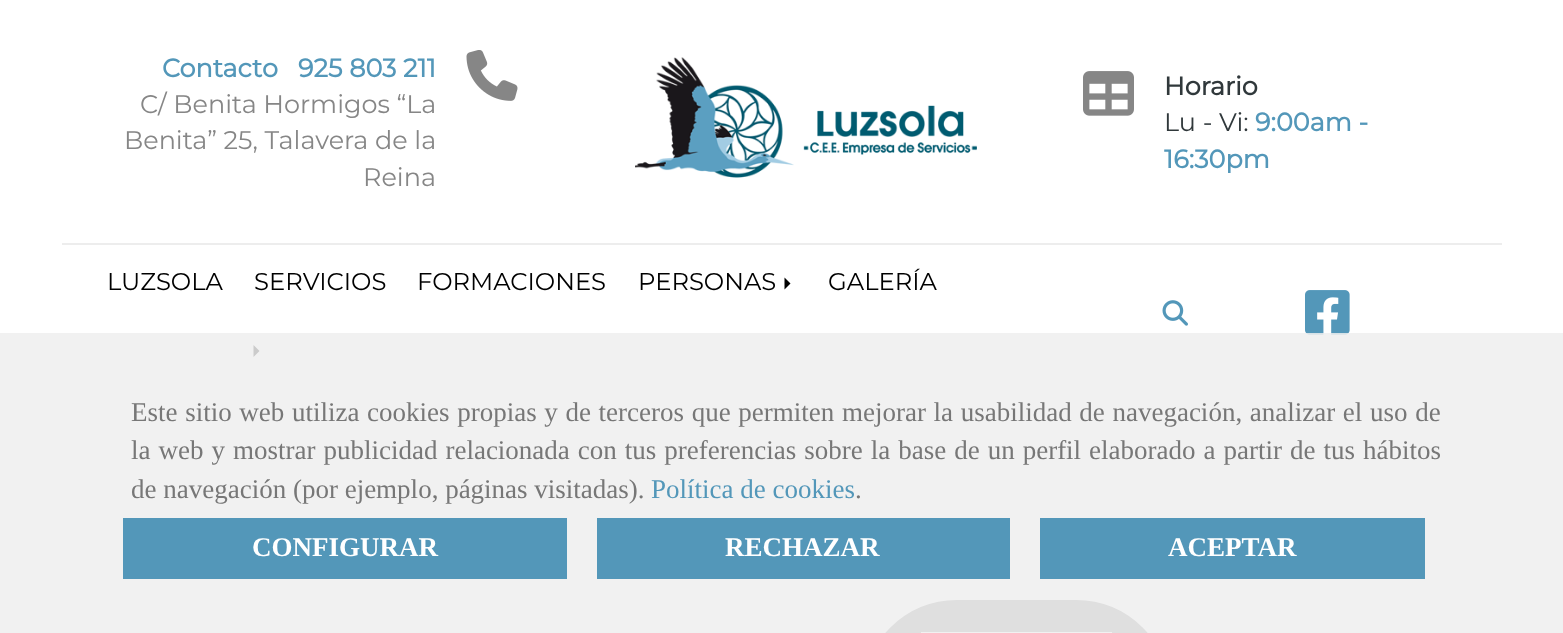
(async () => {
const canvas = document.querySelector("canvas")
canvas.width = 1563
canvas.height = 633
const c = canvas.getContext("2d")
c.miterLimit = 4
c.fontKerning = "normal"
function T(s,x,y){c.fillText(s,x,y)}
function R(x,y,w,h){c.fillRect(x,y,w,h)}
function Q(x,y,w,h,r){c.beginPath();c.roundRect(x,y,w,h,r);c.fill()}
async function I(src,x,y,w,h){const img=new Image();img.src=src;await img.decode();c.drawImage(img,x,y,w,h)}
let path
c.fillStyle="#fff"
R(0,0,1563,633)
c.fillStyle="#ededed"
R(62,243,1440,2)
c.font="bold 25.5px Montserrat"
c.fillStyle="#5397b9"
T("Contacto",162,77)
T("925 803 211",298,77)
c.font="100 25.5px Montserrat"
c.fillStyle="#868686"
T("C/ Benita Hormigos “La",140,113)
T("Benita” 25, Talavera de la",124,149)
T("Reina",363,186)
await I("1.png",466,50,52,51)
await I("2.png",635,57,342,121)
await I("3.png",1083,71,51,45)
c.font="bold 25.5px Montserrat"
c.fillStyle="#30383b"
T("Horario",1164,95)
c.font="100 25.5px Montserrat"
T("Lu - Vi:",1164,131)
c.font="bold 25.5px Montserrat"
c.fillStyle="#5397b9"
T("9:00am -",1255,131)
T("16:30pm",1164,168)
c.font="100 24.25px Montserrat"
c.fillStyle="#000"
T("LUZSOLA",107,290)
T("SERVICIOS",254,290)
T("FORMACIONES",417,290)
T("PERSONAS",638,290)
path = new Path2D("M784.5 289.5v-12l6 6z")
c.fill(path)
T("GALERÍA",828,290)
path = new Path2D("M253.5 357v-12l6 6z")
c.fill(path)
await I("4.png",1162,300,26,26)
await I("5.png",1305,290,45,45)
c.fillStyle="#868686"
Q(863,600,307,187,153.5)
c.fillStyle="#fff"
R(921,632,191,1)
c.fillStyle="#eeeeeed9"
R(0,333,1563,300)
c.wordSpacing="0.9px"
c.font="27px Liberation Serif"
c.fillStyle="#777"
T("Este sitio web utiliza cookies propias y de terceros que permiten mejorar la usabilidad de navegación, analizar el uso de",131,421)
c.wordSpacing="1.25px"
T("la web y mostrar publicidad relacionada con tus preferencias sobre la base de un perfil elaborado a partir de tus hábitos",131,459)
c.wordSpacing="0px"
T("de navegación (por ejemplo, páginas visitadas).",131,498)
c.fillStyle="#5397b9"
T("Política de cookies",651,498)
c.fillStyle="#777"
T(".",855,498)
c.fillStyle="#5397b9"
R(123,518,444,61)
c.font="bold 27px Liberation Serif"
c.fillStyle="#fff"
T("CONFIGURAR",252,556)
c.fillStyle="#5397b9"
R(597,518,413,61)
c.fillStyle="#fff"
T("RECHAZAR",725,556)
c.fillStyle="#5397b9"
R(1040,518,385,61)
c.fillStyle="#fff"
T("ACEPTAR",1168,556)
})()
